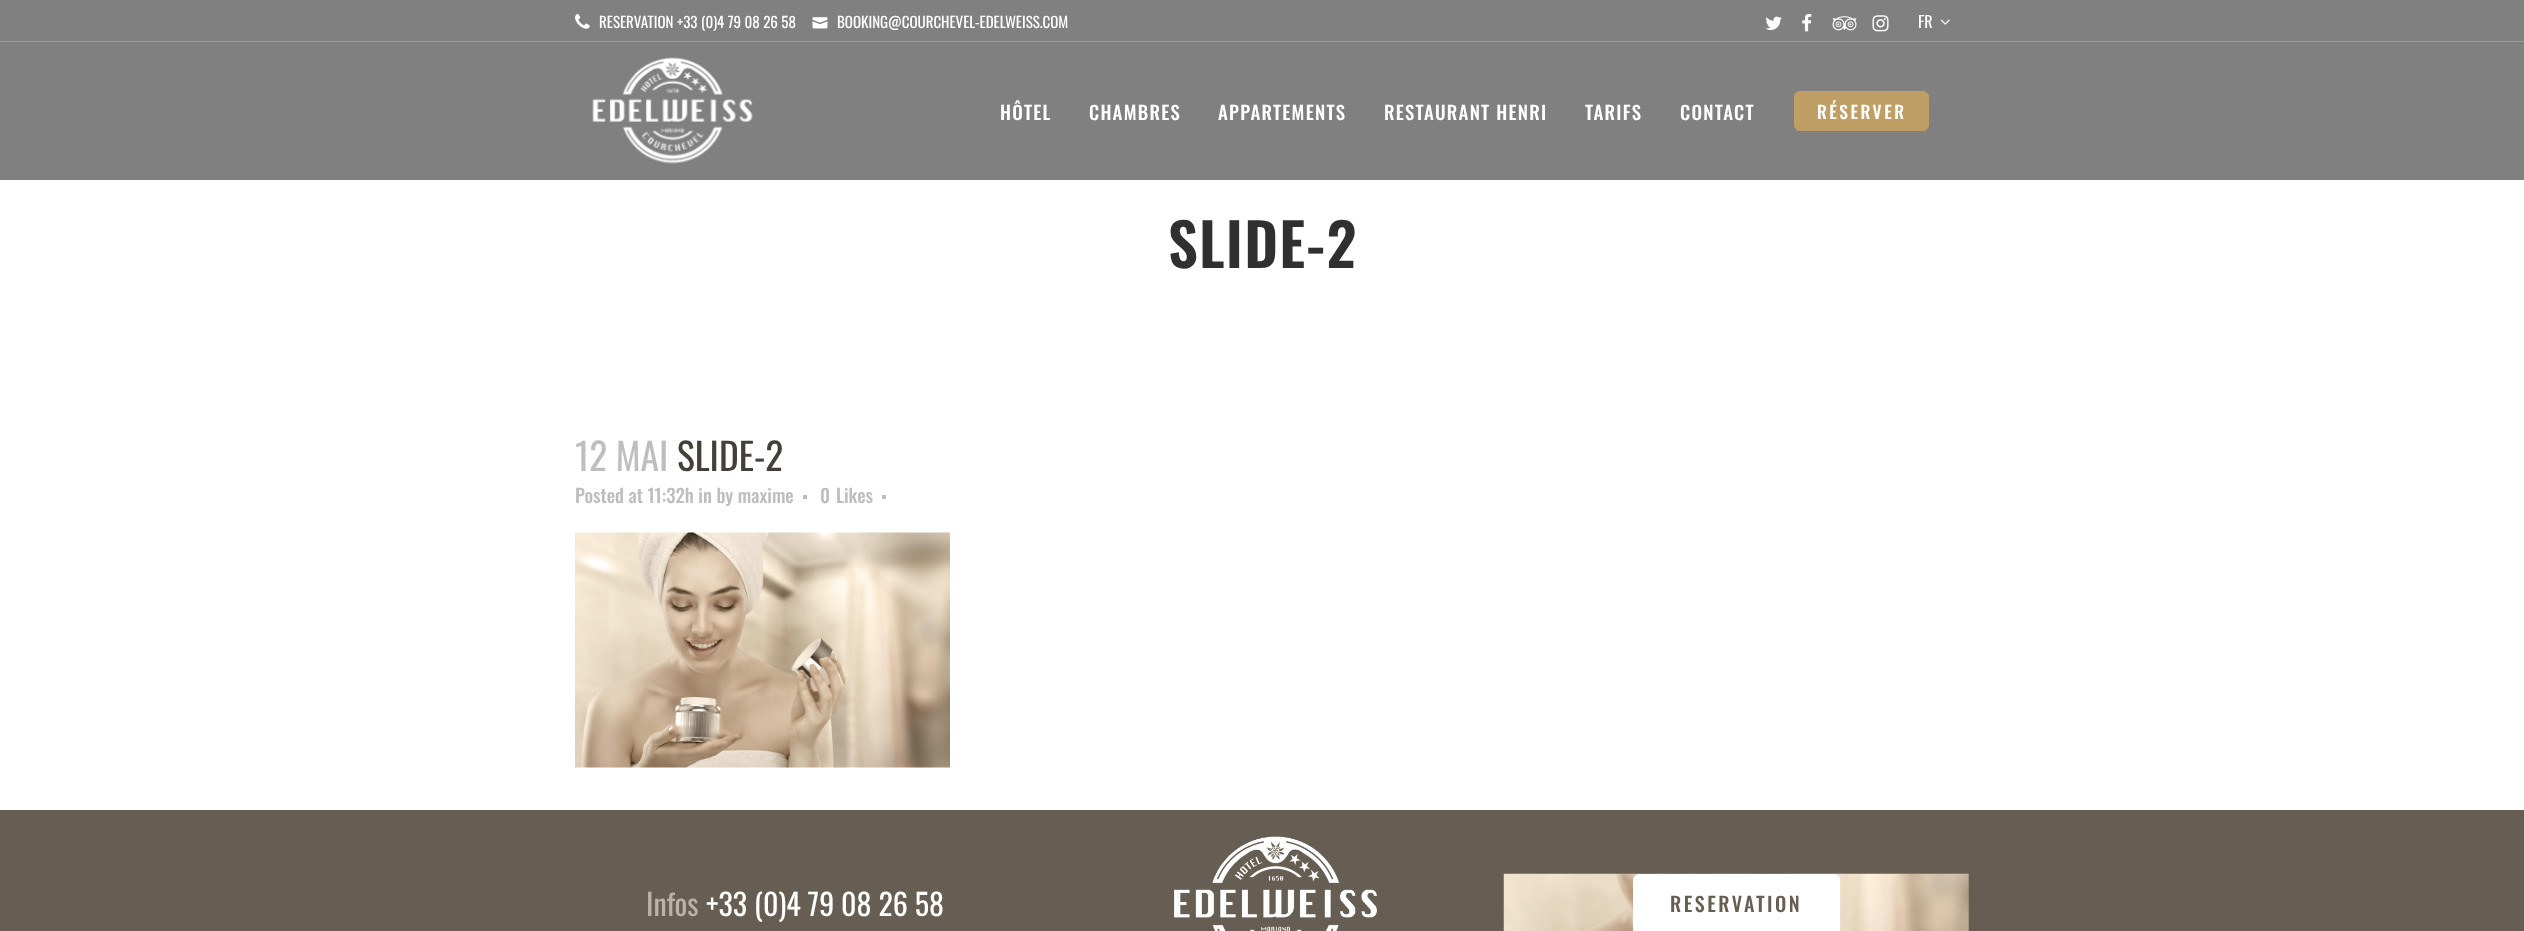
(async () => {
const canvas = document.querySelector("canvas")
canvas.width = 2524
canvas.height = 931
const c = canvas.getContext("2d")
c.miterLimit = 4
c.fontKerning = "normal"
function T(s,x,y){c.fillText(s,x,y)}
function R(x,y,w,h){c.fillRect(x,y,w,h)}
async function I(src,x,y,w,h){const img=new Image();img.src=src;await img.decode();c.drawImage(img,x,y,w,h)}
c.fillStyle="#fff"
R(0,0,2524,931)
c.fillStyle="#808080"
R(0,0,2524,180)
c.fillStyle="#999"
R(0,41,2524,1)
await I("1.png",575,14,15,15)
c.font="15px Oswald"
c.fillStyle="#fff"
T("RESERVATION +33 (0)4 79 08 26 58",599,28)
await I("2.png",812,17,16,12)
T("BOOKING@COURCHEVEL-EDELWEISS.COM",837,28)
await I("3.png",1765,16,17,14)
await I("4.png",1802,13,10,19)
await I("5.png",1832,16,25,15)
await I("6.png",1872,15,17,17)
c.font="16px Oswald"
T("FR",1918,28)
await I("7.png",1940,19,10,6)
await I("8.png",592,57,161,107)
c.letterSpacing="1.25px"
c.font="500 18.75px Oswald"
T("HÔTEL",1000,120)
T("CHAMBRES",1089,120)
T("APPARTEMENTS",1218,120)
T("RESTAURANT HENRI",1384,120)
T("TARIFS",1585,120)
T("CONTACT",1680,120)
c.fillStyle="#c09f66"
c.beginPath()
c.roundRect(1794.5,91.5,134,39,5.5)
c.fill()
c.strokeStyle="#c09f66"
c.stroke()
c.letterSpacing="2.5px"
c.font="500 17.5px Oswald"
c.fillStyle="#fff"
T("RÉSERVER",1817,119)
c.letterSpacing="1.25px"
c.font="600 59px Oswald"
c.fillStyle="#303030"
T("SLIDE-2",1168,268)
c.letterSpacing="0px"
c.font="37.5px Oswald"
c.fillStyle="#bebebe"
T("12 MAI",575,471)
c.fillStyle="#444038"
T("SLIDE-2",677,471)
c.font="500 18.75px Oswald"
c.fillStyle="#bebebe"
T("Posted at 11:32h in by maxime",575,503)
R(803,495,4,4)
T("0",820,503)
T("Likes",836,503)
R(882,495,4,4)
await I("9.png",575,532,375,236)
c.fillStyle="#665e53"
R(0,810,2524,121)
c.font="30px Oswald"
c.fillStyle="#bbb3a7"
T("Infos",646,916)
c.fillStyle="#fff"
T("+33 (0)4 79 08 26 58",706,916)
await I("10.png",1174,836,203,95)
await I("11.png",1503,873,466,58)
c.beginPath()
c.roundRect(1633.5,874.5,206,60,5.5)
c.fill()
c.strokeStyle="#fff"
c.stroke()
c.letterSpacing="2.5px"
c.font="500 20px Oswald"
c.fillStyle="#665e53"
T("RESERVATION",1670,912)
})()
